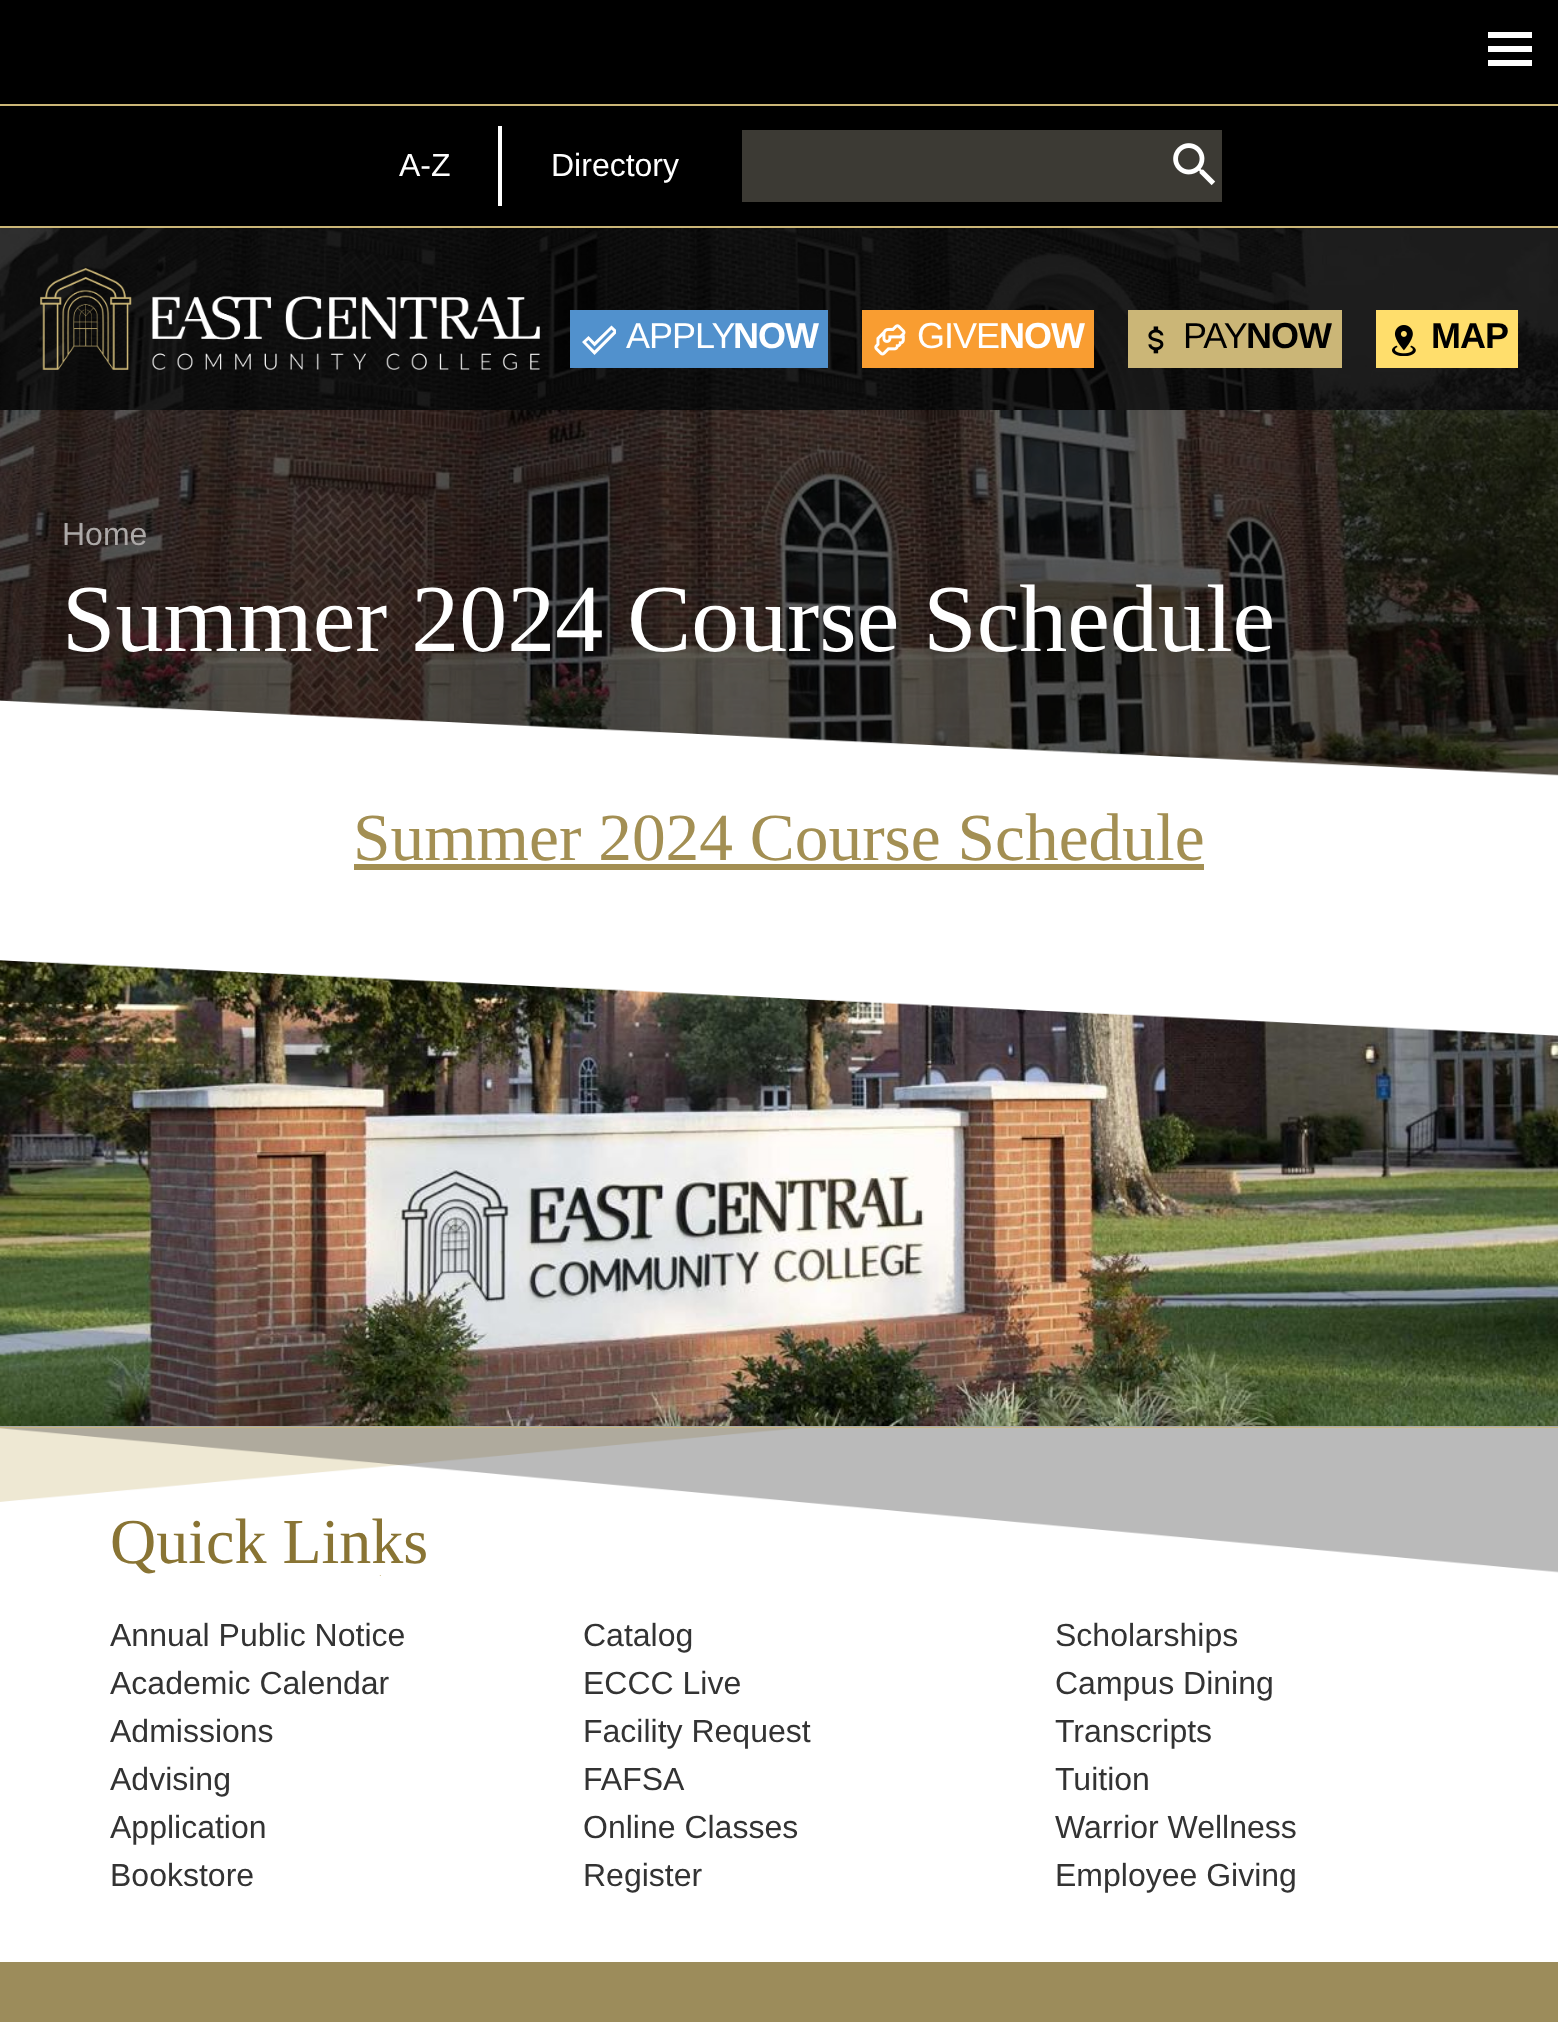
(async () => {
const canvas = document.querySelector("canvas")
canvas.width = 1558
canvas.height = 2022
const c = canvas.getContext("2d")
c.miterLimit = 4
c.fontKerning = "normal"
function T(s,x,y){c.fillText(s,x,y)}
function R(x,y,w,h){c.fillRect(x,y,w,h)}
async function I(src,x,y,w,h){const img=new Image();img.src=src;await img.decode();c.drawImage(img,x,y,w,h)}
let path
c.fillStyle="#fff"
R(0,0,1558,2022)
c.fillStyle="#000"
R(0,0,1558,104)
c.fillStyle="#cbb677"
R(0,104,1558,2)
c.fillStyle="#fff"
R(1488,32,44,6)
R(1488,46,44,6)
R(1488,60,44,6)
c.fillStyle="#000"
R(0,106,1558,120)
c.fillStyle="#cbb677"
R(0,226,1558,2)
c.fillStyle="#fff"
R(498,126,4,80)
c.font="32px Liberation Sans"
T("A-Z",399,176)
T("Directory",551,176)
c.fillStyle="#3c3a34"
R(742,130,480,72)
await I("1.png",1173,143,43,43)
await I("2.png",0,228,1558,182)
await I("3.png",40,268,500,102)
c.fillStyle="#5191cd"
R(570,310,258,58)
c.save()
c.beginPath()
c.rect(582,322,34,34)
c.clip()
c.fillStyle="#fff"
path = new Path2D("M611.5 325.5l6.5 6l-23.5 23.5l-12.5-13l6.5-6l6 6l17-16.5m0 4l-17 17l-6-6.5l-2.5 2l8.5 8.5l19-19z")
c.fill(path)
c.restore()
c.letterSpacing="-1px"
c.font="36px Liberation Sans"
c.fillStyle="#fff"
T("APPLY",626,348)
c.font="bold 36px Liberation Sans"
T("NOW",733,348)
c.fillStyle="#f99d31"
R(862,310,232,58)
await I("4.png",874,324,32,32)
c.font="36px Liberation Sans"
c.fillStyle="#fff"
T("GIVE",917,348)
c.font="bold 36px Liberation Sans"
T("NOW",999,348)
c.fillStyle="#cbb677"
R(1128,310,214,58)
await I("5.png",1148,326,16,28)
c.font="36px Liberation Sans"
c.fillStyle="#000"
T("PAY",1183,348)
c.font="bold 36px Liberation Sans"
T("NOW",1246,348)
c.fillStyle="#ffde6c"
R(1376,310,142,58)
await I("6.png",1392,325,24,31)
c.fillStyle="#000"
T("MAP",1431,348)
await I("7.png",0,410,1558,366)
c.letterSpacing="0px"
c.font="32px Liberation Sans"
c.fillStyle="#aca8a7"
T("Home",62,545)
await I("8.png",0,700,1558,78)
c.font="96px Liberation Serif"
c.fillStyle="#fff"
T("Summer 2024 Course Schedule",62,651)
c.font="67.4px Liberation Serif"
c.fillStyle="#a38f53"
T("Summer 2024 Course Schedule",353,860)
R(354,864,850,6)
await I("9.png",0,960,1558,466)
await I("10.png",0,960,1558,76)
await I("11.png",0,1426,1558,150)
c.font="64px Liberation Serif"
c.fillStyle="#897434"
T("Quick Links",110,1563)
c.font="32px Liberation Sans"
c.fillStyle="#333"
T("Annual Public Notice",110,1646)
T("Catalog",583,1646)
T("Scholarships",1055,1646)
T("Academic Calendar",110,1694)
T("ECCC Live",583,1694)
T("Campus Dining",1055,1694)
T("Admissions",110,1742)
T("Facility Request",583,1742)
T("Transcripts",1055,1742)
T("Advising",110,1790)
T("FAFSA",583,1790)
T("Tuition",1055,1790)
T("Application",110,1838)
T("Online Classes",583,1838)
T("Warrior Wellness",1055,1838)
T("Bookstore",110,1886)
T("Register",583,1886)
T("Employee Giving",1055,1886)
c.fillStyle="#9c8c5b"
R(0,1962,1558,60)
})()
